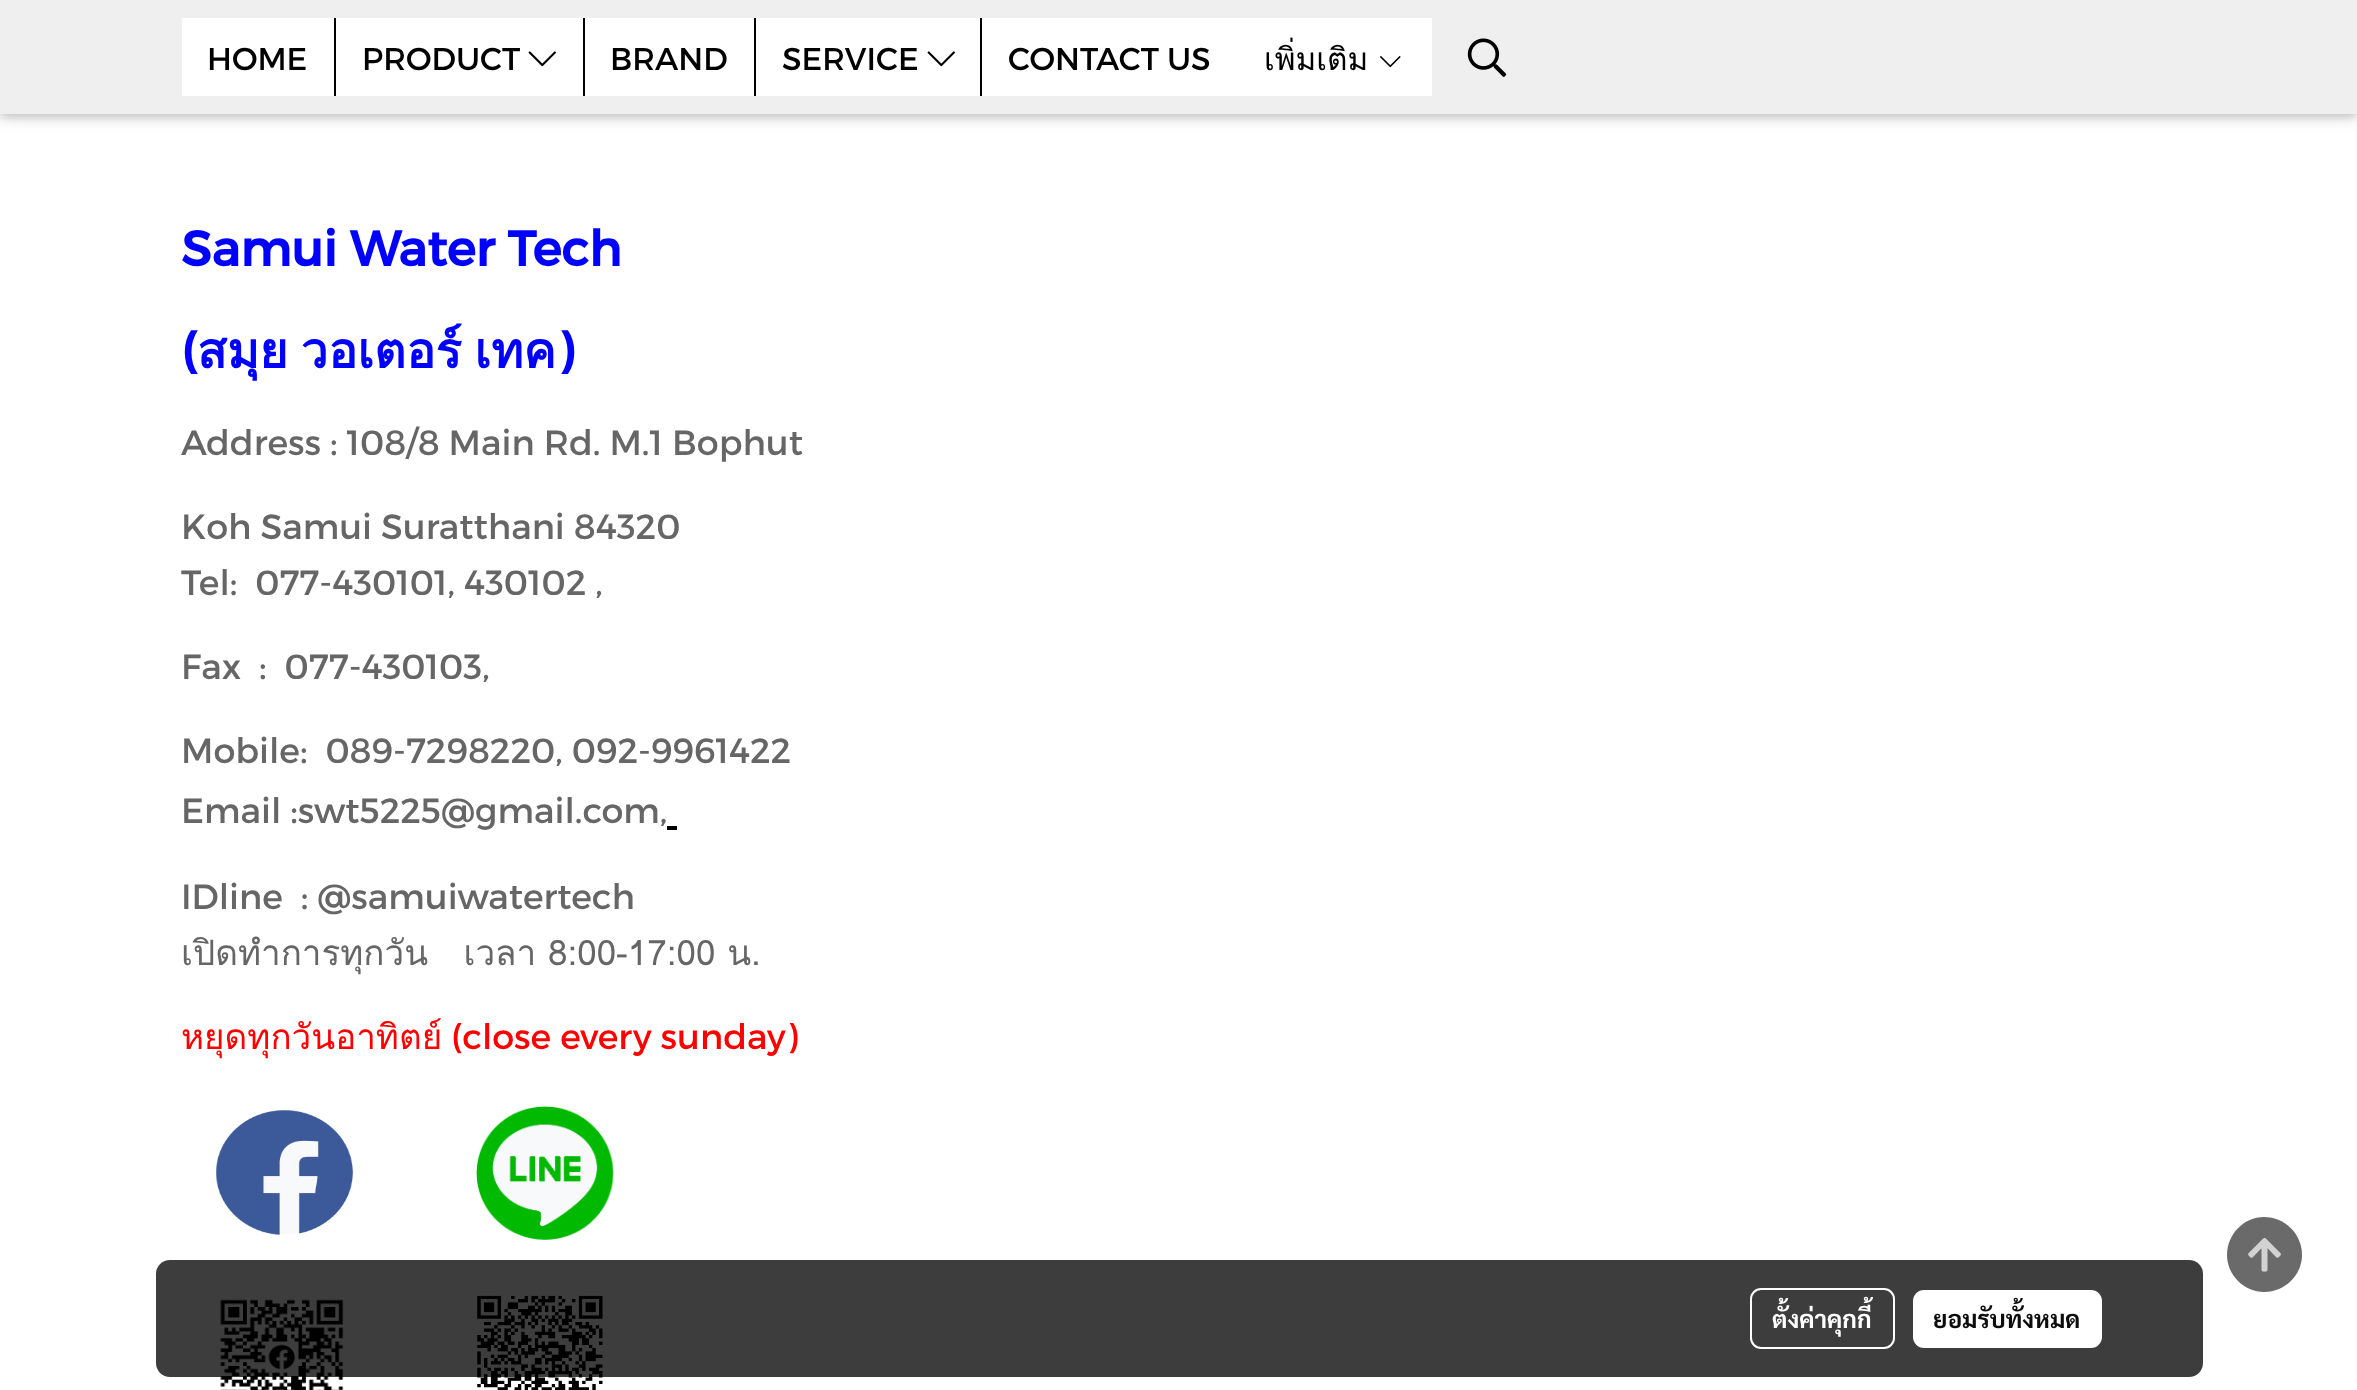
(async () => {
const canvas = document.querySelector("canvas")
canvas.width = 2357
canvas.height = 1390
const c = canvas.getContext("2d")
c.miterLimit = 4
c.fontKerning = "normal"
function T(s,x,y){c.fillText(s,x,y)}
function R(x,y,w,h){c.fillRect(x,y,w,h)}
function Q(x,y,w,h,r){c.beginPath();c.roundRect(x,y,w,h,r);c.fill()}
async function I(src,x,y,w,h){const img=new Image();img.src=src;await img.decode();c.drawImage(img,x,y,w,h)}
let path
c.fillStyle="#fff"
R(0,0,2357,1390)
c.fillStyle="#0000001f"
c.filter="blur(9px)"
c.beginPath()
c.rect(0,4,2357,113)
c.fill()
c.filter="none"
c.fillStyle="#00000029"
c.filter="blur(4.5px)"
c.beginPath()
c.rect(0,4,2357,113)
c.fill()
c.filter="none"
c.fillStyle="#efefef"
R(0,0,2357,114)
c.fillStyle="#000"
R(334,18,2,78)
c.fillStyle="#fff"
R(182,18,152,78)
c.font="31.5px Montserrat"
c.fillStyle="#000"
T("HOME",207,70)
R(583,18,2,78)
c.fillStyle="#fff"
R(336,18,247,78)
c.fillStyle="#000"
T("PRODUCT",362,70)
await I("1.png",528,51,28,16)
R(754,18,2,78)
c.fillStyle="#fff"
R(585,18,169,78)
c.fillStyle="#000"
T("BRAND",610,70)
R(980,18,2,78)
c.fillStyle="#fff"
R(756,18,224,78)
c.fillStyle="#000"
T("SERVICE",782,70)
await I("1.png",927,51,28,16)
c.fillStyle="#fff"
R(982,18,450,78)
c.fillStyle="#000"
T("CONTACT US",1008,70)
c.font="31.5px Loma"
T("เพิ่มเติม",1264,70)
await I("2.png",1380,56,21,12)
await I("3.png",1467,38,40,39)
c.font="bold 49px Montserrat"
c.fillStyle="#00f"
T("Samui Water Tech",181,266)
T("(",181,368)
c.wordSpacing="-4px"
c.font="bold 49px Loma"
T("สมุย วอเตอร์ เทค",197,368)
c.wordSpacing="0px"
c.font="bold 49px Montserrat"
T(")",556,368)
c.font="35px Montserrat"
c.fillStyle="#666"
T("Address : 108/8 Main Rd. M.1 Bophut",181,455)
T("Koh Samui Suratthani 84320",181,539)
T("Tel:  077-430101, 430102 ,",181,595)
T("Fax  :  077-430103,",181,679)
T("Mobile:  089-7298220, 092-9961422",181,763)
T("Email :swt5225@gmail.com,",181,823)
c.fillStyle="#000"
R(667,826,10,4)
c.fillStyle="#666"
T("IDline  : @samuiwatertech",181,909)
c.font="35px Loma"
T("เปิดทำการทุกวัน   เวลา 8:00-17:00 น.",181,965)
c.fillStyle="#f00"
T("หยุดทุกวันอาทิตย์",181,1049)
c.font="35px Montserrat"
T("(close every sunday)",451,1049)
await I("4.png",216,1110,137,125)
await I("5.png",476,1106,138,134)
await I("6.png",220,1299,124,91)
await I("7.png",477,1295,126,95)
c.fillStyle="#6b6a6a"
path = new Path2D("M2264 1217c-20 0-37 17-37 38c0 20 17 37 37 37c21 0 38-17 38-37c0-21-17-38-38-38z")
c.fill(path)
await I("8.png",2248,1237,33,35)
c.fillStyle="#000000c2"
Q(156,1260,2047,117,14)
c.beginPath()
c.roundRect(1751,1289,143,59,10)
c.strokeStyle="#fff"
c.lineWidth=2
c.stroke()
c.font="bold 24.5px Sarabun"
c.fillStyle="#fff"
T("ตั้งค่าคุกกี้",1772,1328)
Q(1913,1290,189,58,11)
c.fillStyle="#0d0d0d"
T("ยอมรับทั้งหมด",1933,1328)
})()
